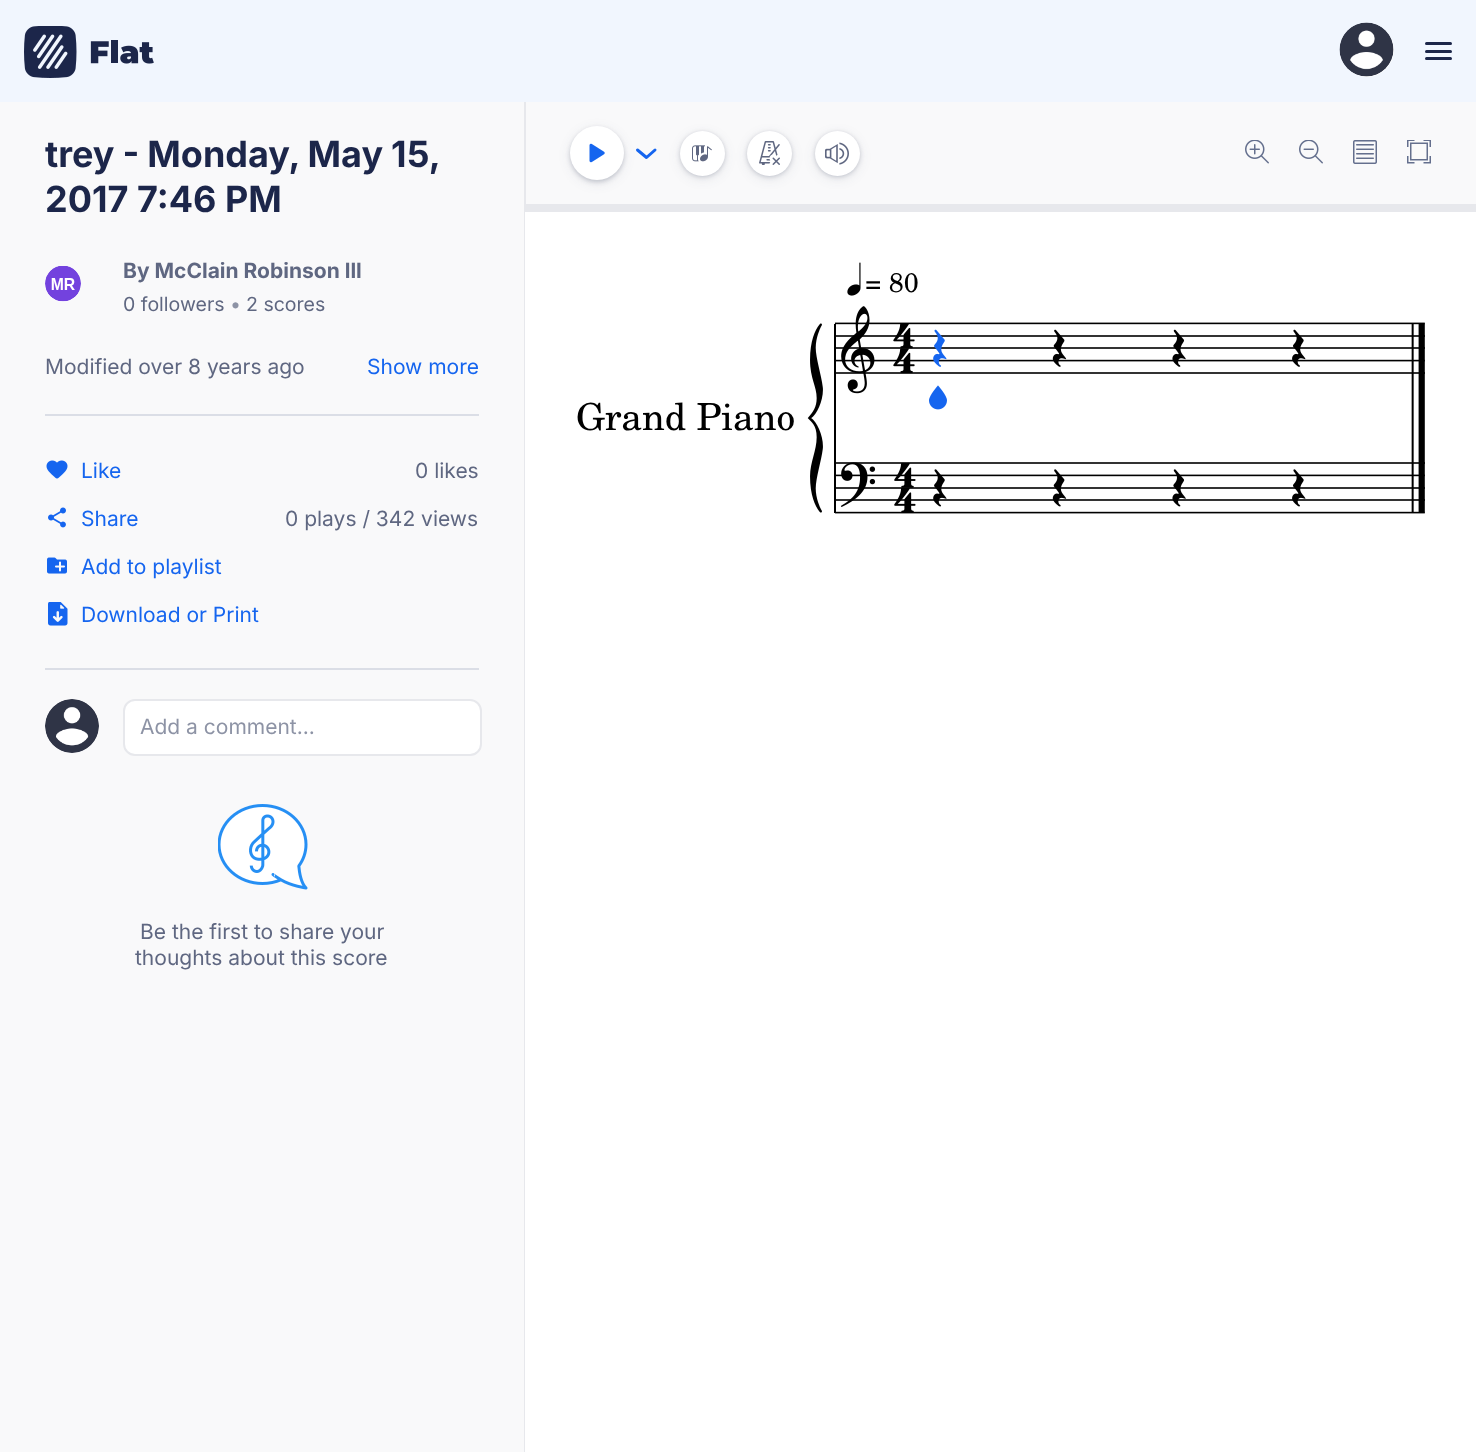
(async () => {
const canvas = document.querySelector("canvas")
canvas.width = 1476
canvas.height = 1452
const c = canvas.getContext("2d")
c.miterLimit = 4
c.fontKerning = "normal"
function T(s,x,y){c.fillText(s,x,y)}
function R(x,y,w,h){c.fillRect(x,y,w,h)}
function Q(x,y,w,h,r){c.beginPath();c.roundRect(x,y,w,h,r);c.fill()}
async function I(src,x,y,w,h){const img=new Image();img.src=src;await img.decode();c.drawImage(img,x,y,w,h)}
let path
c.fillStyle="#f1f6fe"
R(0,0,1476,1452)
await I("1.png",24,26,130,52)
c.fillStyle="#fff"
c.beginPath()
c.arc(1367,50,27,0,7)
c.fill()
await I("2.png",1339,22,55,55)
c.fillStyle="#1c264a"
Q(1425,42,27,3,1.5)
Q(1425,50,27,3,1.5)
Q(1425,57,27,3,1.5)
c.fillStyle="#f9f9fa"
R(0,102,524,1350)
c.fillStyle="#e7e8ec"
R(524,102,2,1350)
c.wordSpacing="-0.5px"
c.font="bold 36px Inter"
c.fillStyle="#1c264a"
T("trey - Monday, May 15,",45,167)
c.wordSpacing="0px"
T("2017 7:46 PM",45,212)
c.fillStyle="#fff"
c.beginPath()
c.arc(63,284,18,0,7)
c.fill()
await I("3.png",45,266,36,36)
c.font="bold 21px Inter"
c.fillStyle="#5f6781"
T("By McClain Robinson lll",123,278)
c.font="19.5px Inter"
T("0 followers",123,311)
c.fillStyle="#8d93a5"
T("•",230,311)
c.fillStyle="#5f6781"
T("2 scores",246,311)
c.font="21px Inter"
T("Modified over 8 years ago",45,374)
c.fillStyle="#1565ef"
T("Show more",367,374)
c.fillStyle="#dbdee6"
R(45,414,434,2)
await I("4.png",46,460,22,19)
c.fillStyle="#1565ef"
T("Like",81,478)
c.fillStyle="#5f6781"
T("0 likes",415,478)
await I("5.png",48,507,18,21)
c.fillStyle="#1565ef"
T("Share",81,526)
c.fillStyle="#5f6781"
T("0 plays / 342 views",285,526)
await I("6.png",47,557,20,17)
c.fillStyle="#1565ef"
T("Add to playlist",81,574)
await I("7.png",48,602,20,24)
T("Download or Print",81,622)
c.fillStyle="#dbdee6"
R(45,668,434,2)
c.fillStyle="#fff"
c.beginPath()
c.arc(72,726,27,0,7)
c.fill()
await I("8.png",45,699,54,54)
c.beginPath()
c.roundRect(124,700,357,55,11)
c.fill()
c.strokeStyle="#e7e8ec"
c.lineWidth=2
c.stroke()
c.fillStyle="#8d93a5"
T("Add a comment...",140,734)
await I("9.png",218,804,90,86)
c.fillStyle="#5f6781"
T("Be the first to share your",140,939)
T("thoughts about this score",135,965)
c.fillStyle="#f9f9fa"
R(526,102,950,102)
c.fillStyle="#28304f33"
c.filter="blur(2px)"
c.beginPath()
c.roundRect(570,128,54,54,27)
c.fill()
c.filter="none"
c.fillStyle="#28304f1a"
c.filter="blur(6px)"
c.beginPath()
c.roundRect(570,129,54,54,27)
c.fill()
c.filter="none"
c.fillStyle="#fff"
c.beginPath()
c.arc(597,153,27,0,7)
c.fill()
await I("10.png",589,143,16,20)
path = new Path2D("M637.5 150l9 7.5l8.5-7.5")
c.strokeStyle="#1565ef"
c.lineWidth=3
c.lineCap="round"
c.lineJoin="round"
c.stroke(path)
c.fillStyle="#28304f33"
c.filter="blur(2px)"
c.beginPath()
c.roundRect(680,132,45,45,22.5)
c.fill()
c.filter="none"
c.fillStyle="#28304f1a"
c.filter="blur(6px)"
c.beginPath()
c.roundRect(680,134,45,45,22.5)
c.fill()
c.filter="none"
c.fillStyle="#fff"
c.beginPath()
c.arc(702.5,153.5,22.5,0,7)
c.fill()
await I("11.png",692,145,20,17)
c.fillStyle="#28304f33"
c.filter="blur(2px)"
c.beginPath()
c.roundRect(747,132,45,45,22.5)
c.fill()
c.filter="none"
c.fillStyle="#28304f1a"
c.filter="blur(6px)"
c.beginPath()
c.roundRect(747,134,45,45,22.5)
c.fill()
c.filter="none"
c.fillStyle="#fff"
c.beginPath()
c.arc(769.5,153.5,22.5,0,7)
c.fill()
await I("12.png",759,141,21,24)
c.fillStyle="#28304f33"
c.filter="blur(2px)"
c.beginPath()
c.roundRect(815,132,45,45,22.5)
c.fill()
c.filter="none"
c.fillStyle="#28304f1a"
c.filter="blur(6px)"
c.beginPath()
c.roundRect(815,134,45,45,22.5)
c.fill()
c.filter="none"
c.fillStyle="#fff"
c.beginPath()
c.arc(837.5,153.5,22.5,0,7)
c.fill()
await I("13.png",825,142,24,23)
await I("14.png",1245,140,24,24)
await I("15.png",1299,140,24,24)
await I("16.png",1353,140,24,24)
await I("17.png",1407,140,24,24)
c.fillStyle="#e7e8ec"
R(525,204,951,8)
c.fillStyle="#fff"
R(525,212,951,1240)
await I("18.png",807,262,618,252)
c.font="27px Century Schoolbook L"
c.fillStyle="#000"
T("= 80",865,292)
c.font="37.25px Century Schoolbook L"
T("Grand Piano",576,430)
})()
